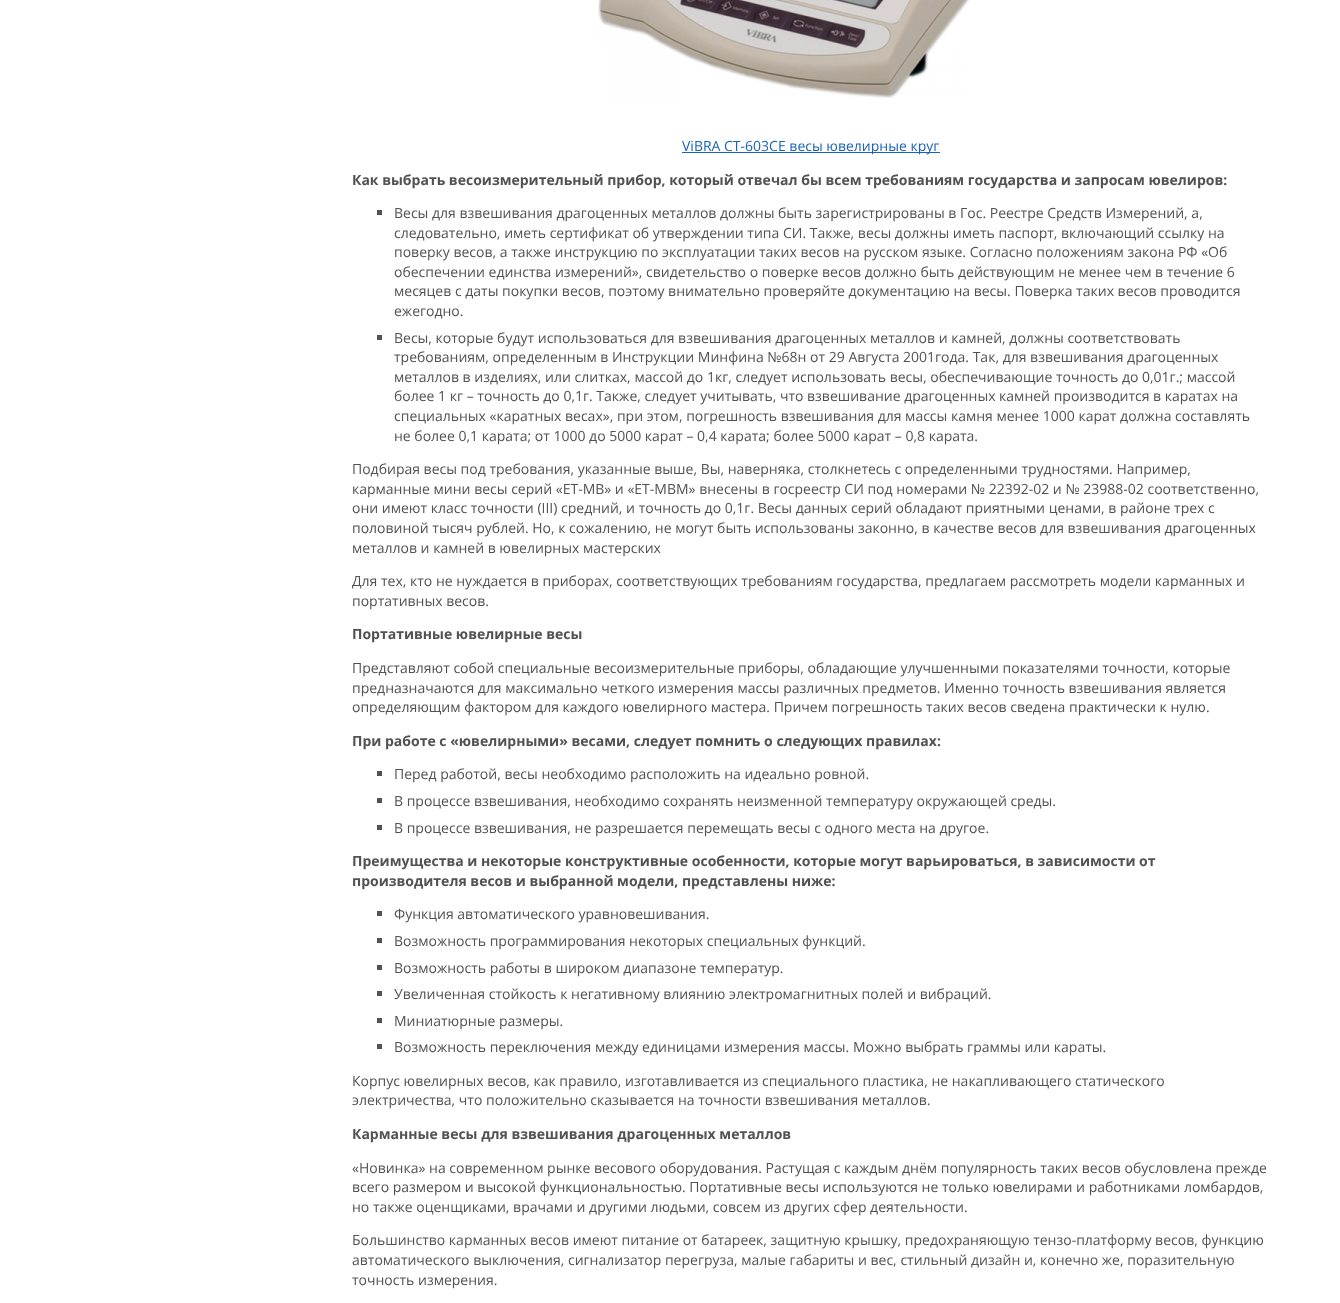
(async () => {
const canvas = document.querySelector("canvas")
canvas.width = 1340
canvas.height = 1303
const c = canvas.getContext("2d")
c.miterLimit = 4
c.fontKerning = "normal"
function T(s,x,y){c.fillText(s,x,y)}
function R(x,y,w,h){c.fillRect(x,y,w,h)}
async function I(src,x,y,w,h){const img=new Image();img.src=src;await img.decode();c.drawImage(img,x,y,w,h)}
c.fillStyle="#fff"
R(0,0,1340,1303)
await I("1.png",598,0,372,99)
c.fillStyle="#1a63ba"
R(682,152,258,1)
c.font="14px Open Sans"
T("ViBRA CT-603CE весы ювелирные круг",682,151)
c.font="bold 14px Open Sans"
c.fillStyle="#525252"
T("Как выбрать весоизмерительный прибор, который отвечал бы всем требованиям государства и запросам ювелиров:",352,185)
R(377,210,5,5)
c.font="14px Open Sans"
T("Весы для взвешивания драгоценных металлов должны быть зарегистрированы в Гос. Реестре Средств Измерений, а,",394,218)
T("следовательно, иметь сертификат об утверждении типа СИ. Также, весы должны иметь паспорт, включающий ссылку на",394,238)
T("поверку весов, а также инструкцию по эксплуатации таких весов на русском языке. Согласно положениям закона РФ «Об",394,257)
T("обеспечении единства измерений», свидетельство о поверке весов должно быть действующим не менее чем в течение 6",394,277)
T("месяцев с даты покупки весов, поэтому внимательно проверяйте документацию на весы. Поверка таких весов проводится",394,296)
T("ежегодно.",394,316)
R(377,335,5,5)
T("Весы, которые будут использоваться для взвешивания драгоценных металлов и камней, должны соответствовать",394,343)
T("требованиям, определенным в Инструкции Минфина №68н от 29 Августа 2001года. Так, для взвешивания драгоценных",394,362)
T("металлов в изделиях, или слитках, массой до 1кг, следует использовать весы, обеспечивающие точность до 0,01г.; массой",394,382)
T("более 1 кг – точность до 0,1г. Также, следует учитывать, что взвешивание драгоценных камней производится в каратах на",394,401)
T("специальных «каратных весах», при этом, погрешность взвешивания для массы камня менее 1000 карат должна составлять",394,421)
T("не более 0,1 карата; от 1000 до 5000 карат – 0,4 карата; более 5000 карат – 0,8 карата.",394,441)
T("Подбирая весы под требования, указанные выше, Вы, наверняка, столкнетесь с определенными трудностями. Например,",352,474)
T("карманные мини весы серий «ЕТ-МВ» и «ЕТ-МВМ» внесены в госреестр СИ под номерами № 22392-02 и № 23988-02 соответственно,",352,494)
T("они имеют класс точности (III) средний, и точность до 0,1г. Весы данных серий обладают приятными ценами, в районе трех с",352,513)
T("половиной тысяч рублей. Но, к сожалению, не могут быть использованы законно, в качестве весов для взвешивания драгоценных",352,533)
T("металлов и камней в ювелирных мастерских",352,553)
T("Для тех, кто не нуждается в приборах, соответствующих требованиям государства, предлагаем рассмотреть модели карманных и",352,586)
T("портативных весов.",352,606)
c.font="bold 14px Open Sans"
T("Портативные ювелирные весы",352,639)
c.font="14px Open Sans"
T("Представляют собой специальные весоизмерительные приборы, обладающие улучшенными показателями точности, которые",352,673)
T("предназначаются для максимально четкого измерения массы различных предметов. Именно точность взвешивания является",352,693)
T("определяющим фактором для каждого ювелирного мастера. Причем погрешность таких весов сведена практически к нулю.",352,712)
c.font="bold 14px Open Sans"
T("При работе с «ювелирными» весами, следует помнить о следующих правилах:",352,746)
R(377,771,5,5)
c.font="14px Open Sans"
T("Перед работой, весы необходимо расположить на идеально ровной.",394,779)
R(377,798,5,5)
T("В процессе взвешивания, необходимо сохранять неизменной температуру окружающей среды.",394,806)
R(377,825,5,5)
T("В процессе взвешивания, не разрешается перемещать весы с одного места на другое.",394,833)
c.font="bold 14px Open Sans"
T("Преимущества и некоторые конструктивные особенности, которые могут варьироваться, в зависимости от",352,866)
T("производителя весов и выбранной модели, представлены ниже:",352,886)
R(377,911,5,5)
c.font="14px Open Sans"
T("Функция автоматического уравновешивания.",394,919)
R(377,938,5,5)
T("Возможность программирования некоторых специальных функций.",394,946)
R(377,965,5,5)
T("Возможность работы в широком диапазоне температур.",394,973)
R(377,991,5,5)
T("Увеличенная стойкость к негативному влиянию электромагнитных полей и вибраций.",394,999)
R(377,1018,5,5)
T("Миниатюрные размеры.",394,1026)
R(377,1044,5,5)
T("Возможность переключения между единицами измерения массы. Можно выбрать граммы или караты.",394,1052)
T("Корпус ювелирных весов, как правило, изготавливается из специального пластика, не накапливающего статического",352,1086)
T("электричества, что положительно сказывается на точности взвешивания металлов.",352,1105)
c.font="bold 14px Open Sans"
T("Карманные весы для взвешивания драгоценных металлов",352,1139)
c.font="14px Open Sans"
T("«Новинка» на современном рынке весового оборудования. Растущая с каждым днём популярность таких весов обусловлена прежде",352,1173)
T("всего размером и высокой функциональностью. Портативные весы используются не только ювелирами и работниками ломбардов,",352,1192)
T("но также оценщиками, врачами и другими людьми, совсем из других сфер деятельности.",352,1212)
T("Большинство карманных весов имеют питание от батареек, защитную крышку, предохраняющую тензо-платформу весов, функцию",352,1245)
T("автоматического выключения, сигнализатор перегруза, малые габариты и вес, стильный дизайн и, конечно же, поразительную",352,1265)
T("точность измерения.",352,1285)
})()
